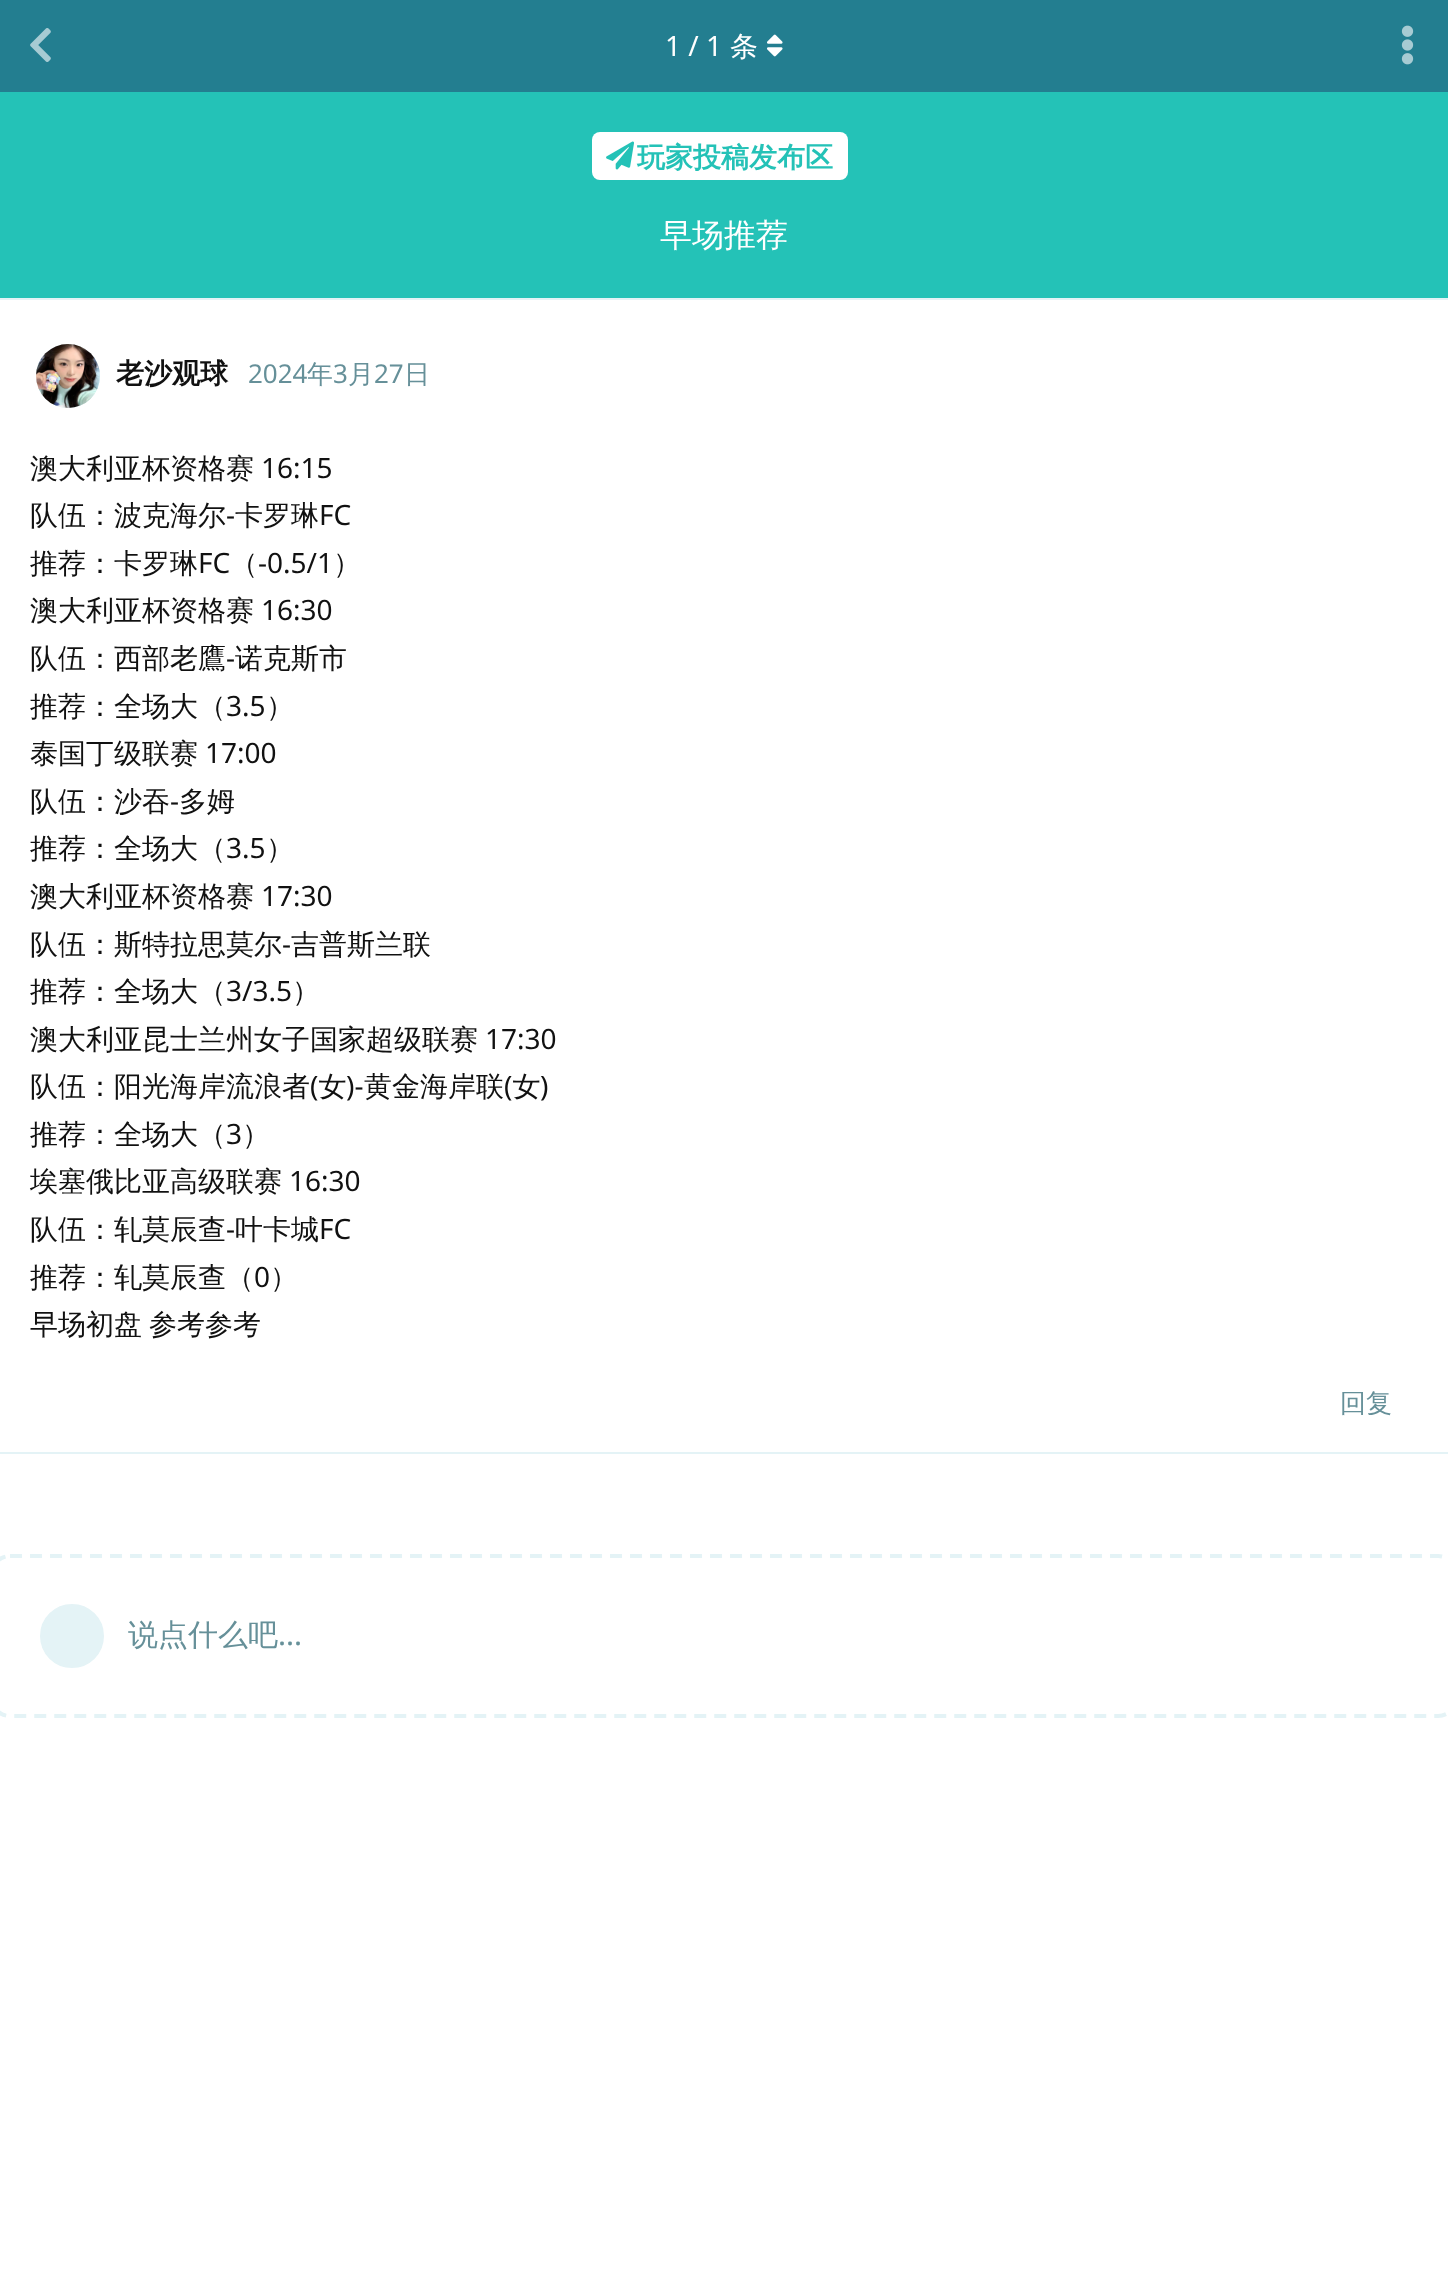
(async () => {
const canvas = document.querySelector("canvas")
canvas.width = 1448
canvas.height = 2295
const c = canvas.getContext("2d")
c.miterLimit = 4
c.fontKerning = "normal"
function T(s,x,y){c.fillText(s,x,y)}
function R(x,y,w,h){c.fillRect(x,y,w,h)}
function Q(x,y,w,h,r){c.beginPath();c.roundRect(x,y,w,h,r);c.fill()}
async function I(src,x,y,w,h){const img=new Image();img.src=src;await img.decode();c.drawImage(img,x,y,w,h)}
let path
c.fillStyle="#fff"
R(0,0,1448,2295)
c.fillStyle="#237e90"
R(0,0,1448,92)
await I("1.png",30,28,21,34)
c.fillStyle="#e4f3f6"
R(0,298,1448,2)
c.font="28px Noto Sans"
c.fillStyle="#fff"
T("1 / 1",665,56)
c.font="500 28px WenQuanYi Zen Hei"
T("条",730,56)
await I("2.png",767,34,16,23)
await I("3.png",1401,25,13,40)
c.fillStyle="#e4f3f6"
R(0,1452,1448,2)
c.beginPath()
c.arc(68,376,35,0,7)
c.fill()
c.strokeStyle="#fff"
c.lineWidth=6
c.stroke()
await I("4.png",36,344,64,64)
c.font="bold 28px WenQuanYi Zen Hei"
c.fillStyle="#111"
T("老沙观球",116,383)
c.font="26px Noto Sans"
c.fillStyle="#669099"
T("2024",248,383)
c.font="500 26px WenQuanYi Zen Hei"
T("年",307,383)
c.font="26px Noto Sans"
T("3",333,383)
c.font="500 26px WenQuanYi Zen Hei"
T("月",348,383)
c.font="26px Noto Sans"
T("27",374,383)
c.font="500 26px WenQuanYi Zen Hei"
T("日",404,383)
c.font="500 28px WenQuanYi Zen Hei"
c.fillStyle="#111"
T("澳大利亚杯资格赛",30,478)
c.font="28px Noto Sans"
T("16:15",261,478)
c.font="500 28px WenQuanYi Zen Hei"
T("队伍：波克海尔",30,525)
c.font="28px Noto Sans"
T("-",226,525)
c.font="500 28px WenQuanYi Zen Hei"
T("卡罗琳",235,525)
c.font="28px Noto Sans"
T("FC",319,525)
c.font="500 28px WenQuanYi Zen Hei"
T("推荐：卡罗琳",30,573)
c.font="28px Noto Sans"
T("FC",198,573)
c.font="500 28px WenQuanYi Zen Hei"
T("（",230,573)
c.font="28px Noto Sans"
T("-0.5/1",258,573)
c.font="500 28px WenQuanYi Zen Hei"
T("）",333,573)
T("澳大利亚杯资格赛",30,620)
c.font="28px Noto Sans"
T("16:30",261,620)
c.font="500 28px WenQuanYi Zen Hei"
T("队伍：西部老鷹",30,668)
c.font="28px Noto Sans"
T("-",226,668)
c.font="500 28px WenQuanYi Zen Hei"
T("诺克斯市",235,668)
T("推荐：全场大（",30,716)
c.font="28px Noto Sans"
T("3.5",226,716)
c.font="500 28px WenQuanYi Zen Hei"
T("）",266,716)
T("泰国丁级联赛",30,763)
c.font="28px Noto Sans"
T("17:00",205,763)
c.font="500 28px WenQuanYi Zen Hei"
T("队伍：沙吞",30,811)
c.font="28px Noto Sans"
T("-",170,811)
c.font="500 28px WenQuanYi Zen Hei"
T("多姆",179,811)
T("推荐：全场大（",30,858)
c.font="28px Noto Sans"
T("3.5",226,858)
c.font="500 28px WenQuanYi Zen Hei"
T("）",266,858)
T("澳大利亚杯资格赛",30,906)
c.font="28px Noto Sans"
T("17:30",261,906)
c.font="500 28px WenQuanYi Zen Hei"
T("队伍：斯特拉思莫尔",30,954)
c.font="28px Noto Sans"
T("-",282,954)
c.font="500 28px WenQuanYi Zen Hei"
T("吉普斯兰联",291,954)
T("推荐：全场大（",30,1001)
c.font="28px Noto Sans"
T("3/3.5",226,1001)
c.font="500 28px WenQuanYi Zen Hei"
T("）",292,1001)
T("澳大利亚昆士兰州女子国家超级联赛",30,1049)
c.font="28px Noto Sans"
T("17:30",485,1049)
c.font="500 28px WenQuanYi Zen Hei"
T("队伍：阳光海岸流浪者 女",30,1096)
T("黄金海岸联 女",364,1096)
c.font="28px Noto Sans"
T("(",310,1096)
T(")-",346,1096)
T("(",504,1096)
T(")",540,1096)
c.font="500 28px WenQuanYi Zen Hei"
T("推荐：全场大（",30,1144)
c.font="28px Noto Sans"
T("3",226,1144)
c.font="500 28px WenQuanYi Zen Hei"
T("）",242,1144)
T("埃塞俄比亚高级联赛",30,1191)
c.font="28px Noto Sans"
T("16:30",289,1191)
c.font="500 28px WenQuanYi Zen Hei"
T("队伍：轧莫辰查",30,1239)
c.font="28px Noto Sans"
T("-",226,1239)
c.font="500 28px WenQuanYi Zen Hei"
T("叶卡城",235,1239)
c.font="28px Noto Sans"
T("FC",319,1239)
c.font="500 28px WenQuanYi Zen Hei"
T("推荐：轧莫辰查（",30,1287)
c.font="28px Noto Sans"
T("0",254,1287)
c.font="500 28px WenQuanYi Zen Hei"
T("）",270,1287)
T("早场初盘",30,1334)
T("参考参考",149,1334)
c.font="500 26px WenQuanYi Zen Hei"
c.fillStyle="#669099"
T("回复",1340,1412)
path = new Path2D("M10 1556h1428c10 0 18 8 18 18v124c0 10-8 18-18 18h-1428c-10 0-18-8-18-18v-124c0-10 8-18 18-18z")
c.strokeStyle="#e4f3f6"
c.lineWidth=4
c.setLineDash([12,8])
c.stroke(path)
c.fillStyle="#e4f3f6"
c.beginPath()
c.arc(72,1636,35,0,7)
c.fill()
c.strokeStyle="#fff"
c.lineWidth=6
c.setLineDash([])
c.stroke()
c.font="500 30px WenQuanYi Zen Hei"
c.fillStyle="#669099"
T("说点什么吧",128,1645)
c.font="30px Noto Sans"
T("...",278,1645)
c.fillStyle="#24c2b7"
R(0,92,1448,206)
c.fillStyle="#fff"
Q(592,132,256,48,8)
await I("5.png",606,141,28,29)
c.font="bold 28px WenQuanYi Zen Hei"
c.fillStyle="#24c2b7"
T("玩家投稿发布区",637,167)
c.font="500 32px WenQuanYi Zen Hei"
c.fillStyle="#fff"
T("早场推荐",660,246)
})()
